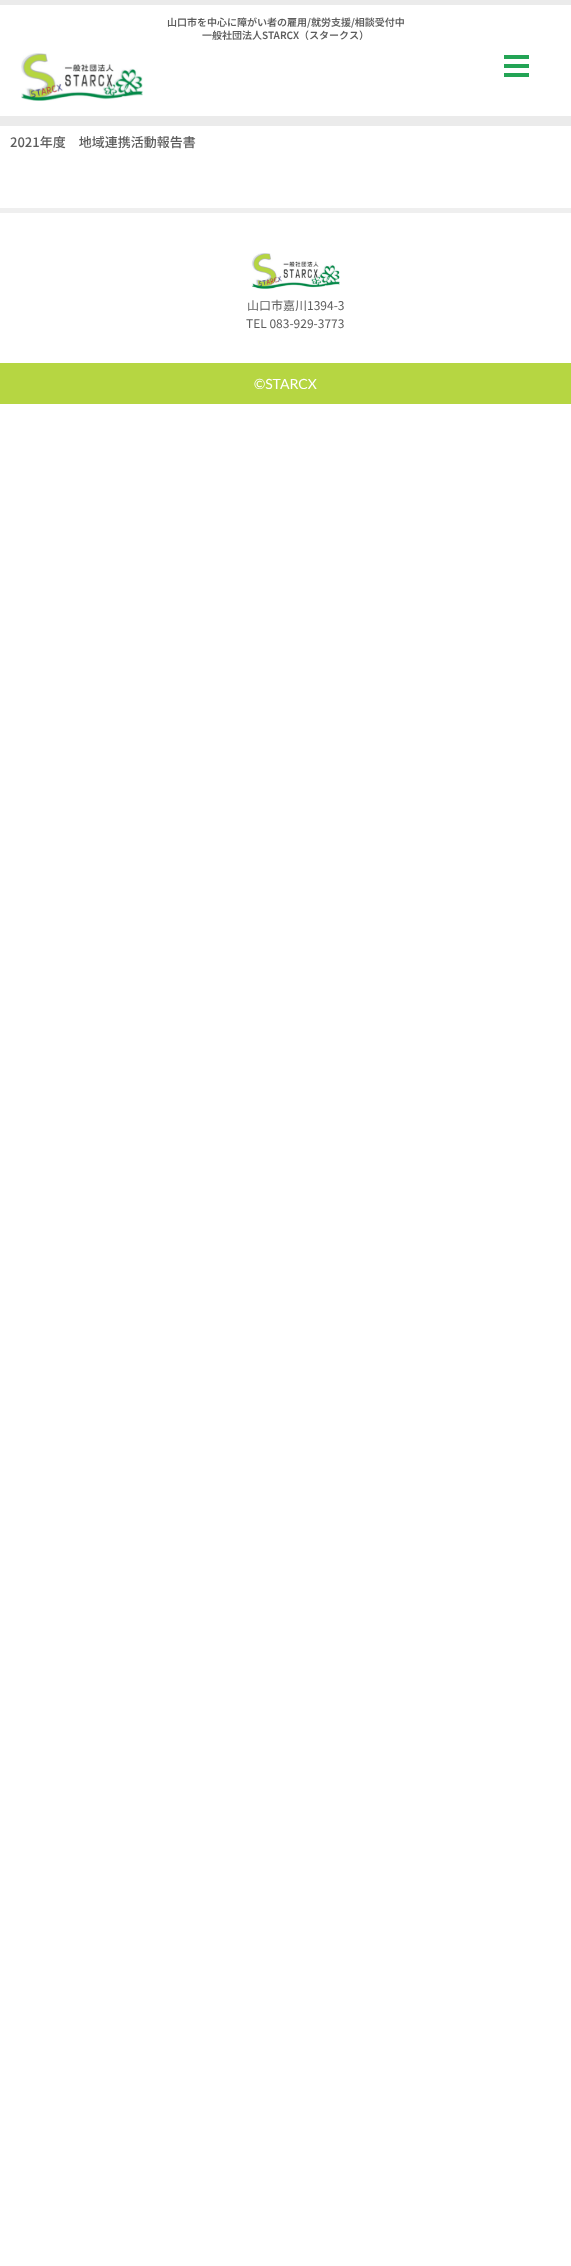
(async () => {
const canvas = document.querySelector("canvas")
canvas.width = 571
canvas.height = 2266
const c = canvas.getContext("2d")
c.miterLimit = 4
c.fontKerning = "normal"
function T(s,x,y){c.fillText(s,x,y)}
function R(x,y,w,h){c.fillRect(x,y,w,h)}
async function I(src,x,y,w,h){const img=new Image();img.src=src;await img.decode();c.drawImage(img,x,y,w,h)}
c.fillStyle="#fff"
R(0,0,571,2266)
c.fillStyle="#ebebeb"
R(0,0,571,5)
R(0,116,571,10)
c.font="600 10px Noto Sans JP"
c.fillStyle="#5d5d5d"
T("山口市を中心に障がい者の雇用/就労支援/相談受付中",167,26)
T("一般社団法人STARCX（スタークス）",202,39)
await I("1.png",21,53,122,48)
c.fillStyle="#23a455"
R(504,55,25,4)
R(504,64,25,4)
R(504,73,25,4)
c.font="500 13px Noto Sans JP"
c.fillStyle="#5d5d5d"
T("2021年度　地域連携活動報告書",10,147)
c.fillStyle="#efefef"
R(0,208,571,5)
await I("2.png",251,253,89,36)
c.font="12px Noto Sans JP"
c.fillStyle="#5d5d5d"
T("山口市嘉川1394-3",247,310)
T("TEL 083-929-3773",246,328)
c.fillStyle="#b6d642"
R(0,363,571,41)
c.font="14px Lato"
c.fillStyle="#fff"
T("©︎STARCX",254,389)
})()
